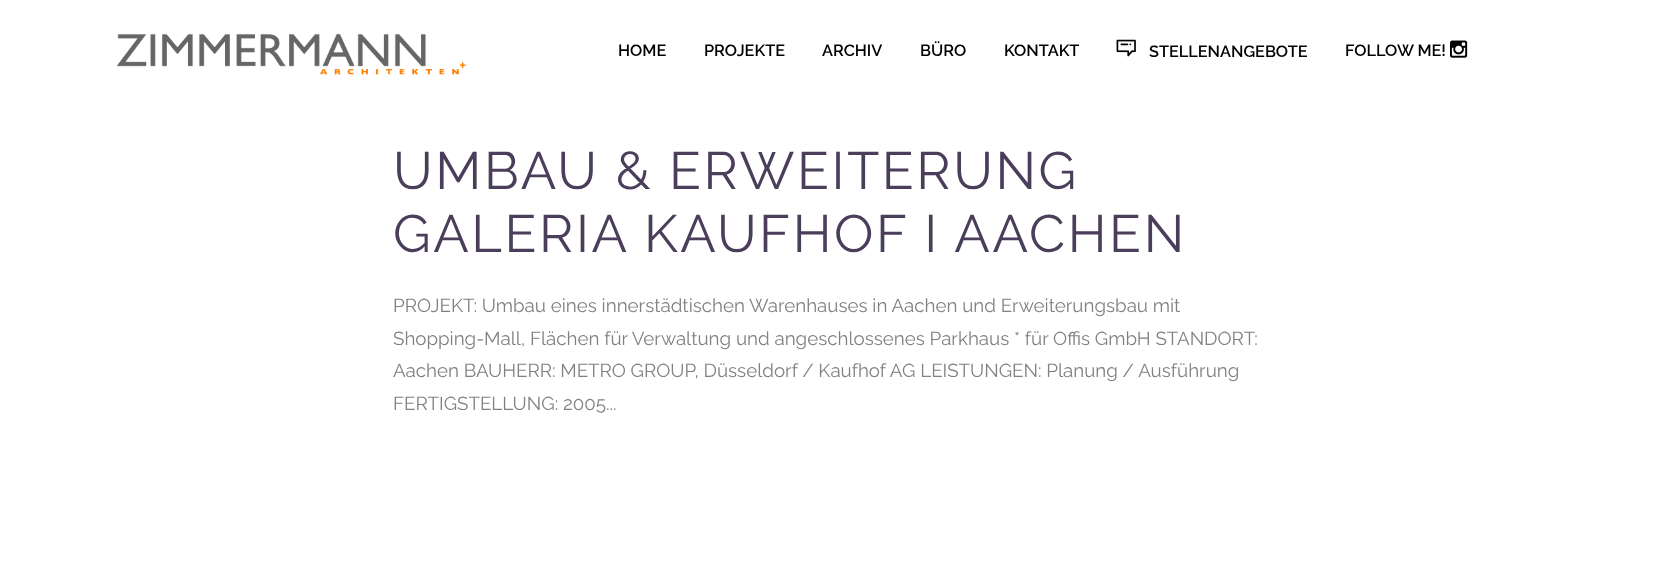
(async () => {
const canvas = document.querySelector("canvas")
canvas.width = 1657
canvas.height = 573
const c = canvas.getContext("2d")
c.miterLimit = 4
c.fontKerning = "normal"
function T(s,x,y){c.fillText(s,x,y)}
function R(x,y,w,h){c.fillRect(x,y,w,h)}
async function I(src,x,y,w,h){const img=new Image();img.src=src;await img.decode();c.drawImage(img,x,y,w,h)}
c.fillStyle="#fff"
R(0,0,1657,573)
await I("1.png",117,33,349,42)
c.font="600 16.25px Raleway"
c.fillStyle="#000"
T("HOME",618,56)
T("PROJEKTE",704,56)
T("ARCHIV",822,56)
T("BÜRO",920,56)
T("KONTAKT",1004,56)
await I("2.png",1116,39,20,18)
T("STELLENANGEBOTE",1149,57)
T("FOLLOW ME!",1345,56)
await I("3.png",1450,40,18,18)
c.letterSpacing="2.6px"
c.font="52.5px Raleway"
c.fillStyle="#4a3e5a"
T("UMBAU & ERWEITERUNG",393,189)
T("GALERIA KAUFHOF I AACHEN",393,252)
c.letterSpacing="0px"
c.font="18.75px Raleway"
c.fillStyle="#808080"
T("PROJEKT: Umbau eines innerstädtischen Warenhauses in Aachen und Erweiterungsbau mit",393,312)
T("Shopping-Mall, Flächen für Verwaltung und angeschlossenes Parkhaus * für Offis GmbH STANDORT:",393,345)
T("Aachen BAUHERR: METRO GROUP, Düsseldorf / Kaufhof AG LEISTUNGEN: Planung / Ausführung",393,377)
T("FERTIGSTELLUNG: 2005...",393,410)
})()
